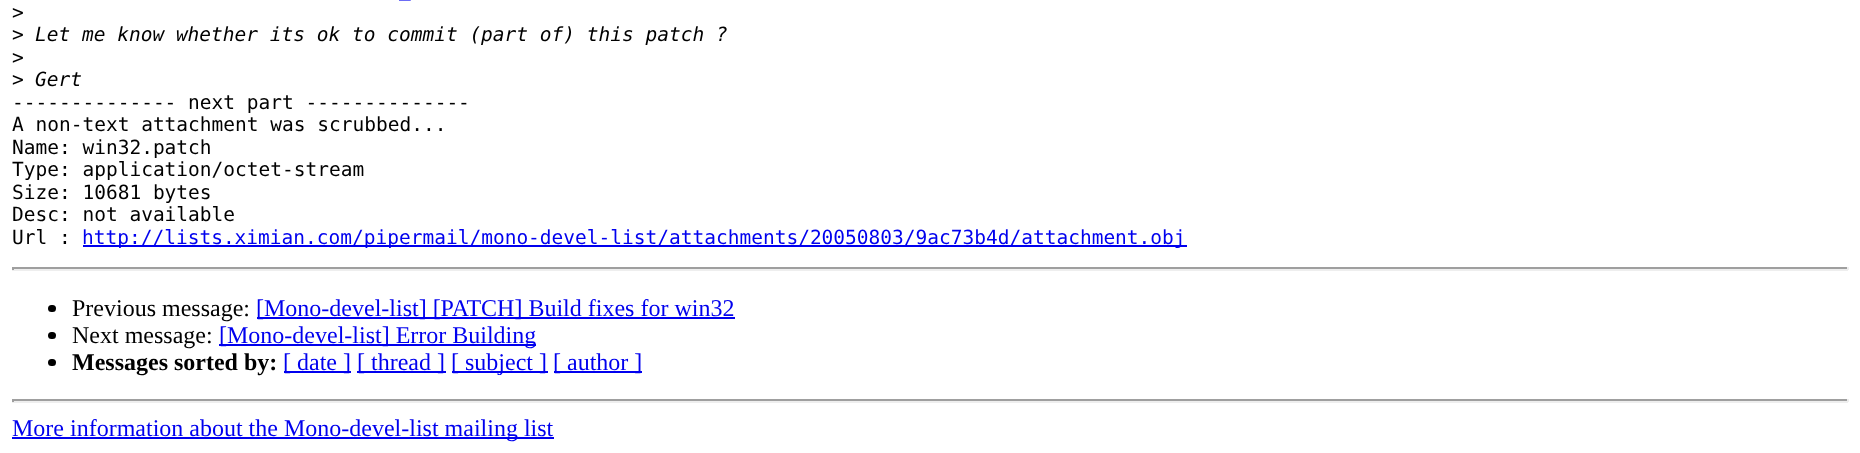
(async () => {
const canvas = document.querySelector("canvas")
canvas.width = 1860
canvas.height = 453
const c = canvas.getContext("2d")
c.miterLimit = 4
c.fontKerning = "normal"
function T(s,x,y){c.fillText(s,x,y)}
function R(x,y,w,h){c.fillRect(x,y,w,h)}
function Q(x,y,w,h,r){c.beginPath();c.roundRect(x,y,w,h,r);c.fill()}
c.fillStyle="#fff"
R(0,0,1860,453)
c.font="italic 19.5px DejaVu Sans Mono"
c.fillStyle="#00e"
T("_",399,-4)
c.font="19.5px DejaVu Sans Mono"
c.fillStyle="#000"
T(">",12,19)
T(">",12,41)
c.font="italic 19.5px DejaVu Sans Mono"
T("Let me know whether its ok to commit (part of) this patch ?",35,41)
c.font="19.5px DejaVu Sans Mono"
T(">",12,64)
T(">",12,86)
c.font="italic 19.5px DejaVu Sans Mono"
T("Gert",35,86)
c.font="19.5px DejaVu Sans Mono"
T("-------------- next part --------------",12,109)
T("A non-text attachment was scrubbed...",12,131)
T("Name: win32.patch",12,154)
T("Type: application/octet-stream",12,176)
T("Size: 10681 bytes",12,199)
T("Desc: not available",12,221)
T("Url :",12,244)
c.fillStyle="#00e"
R(83,245,1104,2)
T("http://lists.ximian.com/pipermail/mono-devel-list/attachments/20050803/9ac73b4d/attachment.obj",82,244)
c.fillStyle="#9f9f9f"
R(12,267,1836,2)
c.fillStyle="#eee"
R(1847,267,2,3)
R(12,269,1836,2)
c.fillStyle="#9f9f9f"
R(12,267,2,3)
c.fillStyle="#000"
Q(48,305,8,7,3.5)
c.font="24px Liberation Serif"
T("Previous message:",72,316)
c.fillStyle="#00e"
R(257,317,478,2)
T("[Mono-devel-list] [PATCH] Build fixes for win32",256,316)
c.fillStyle="#000"
Q(48,332,8,7,3.5)
T("Next message:",72,343)
c.fillStyle="#00e"
R(219,344,317,2)
T("[Mono-devel-list] Error Building",219,343)
c.fillStyle="#000"
Q(48,359,8,7,3.5)
c.font="bold 24px Liberation Serif"
T("Messages sorted by:",72,370)
c.fillStyle="#00e"
R(284,371,67,2)
c.font="24px Liberation Serif"
T("[ date ]",283,370)
R(357,371,89,2)
T("[ thread ]",357,370)
R(452,371,96,2)
T("[ subject ]",451,370)
R(554,371,88,2)
T("[ author ]",553,370)
c.fillStyle="#9f9f9f"
R(12,399,1836,2)
c.fillStyle="#eee"
R(1847,399,2,3)
R(12,401,1836,2)
c.fillStyle="#9f9f9f"
R(12,399,2,3)
c.fillStyle="#00e"
R(12,437,542,2)
T("More information about the Mono-devel-list mailing list",12,436)
})()
